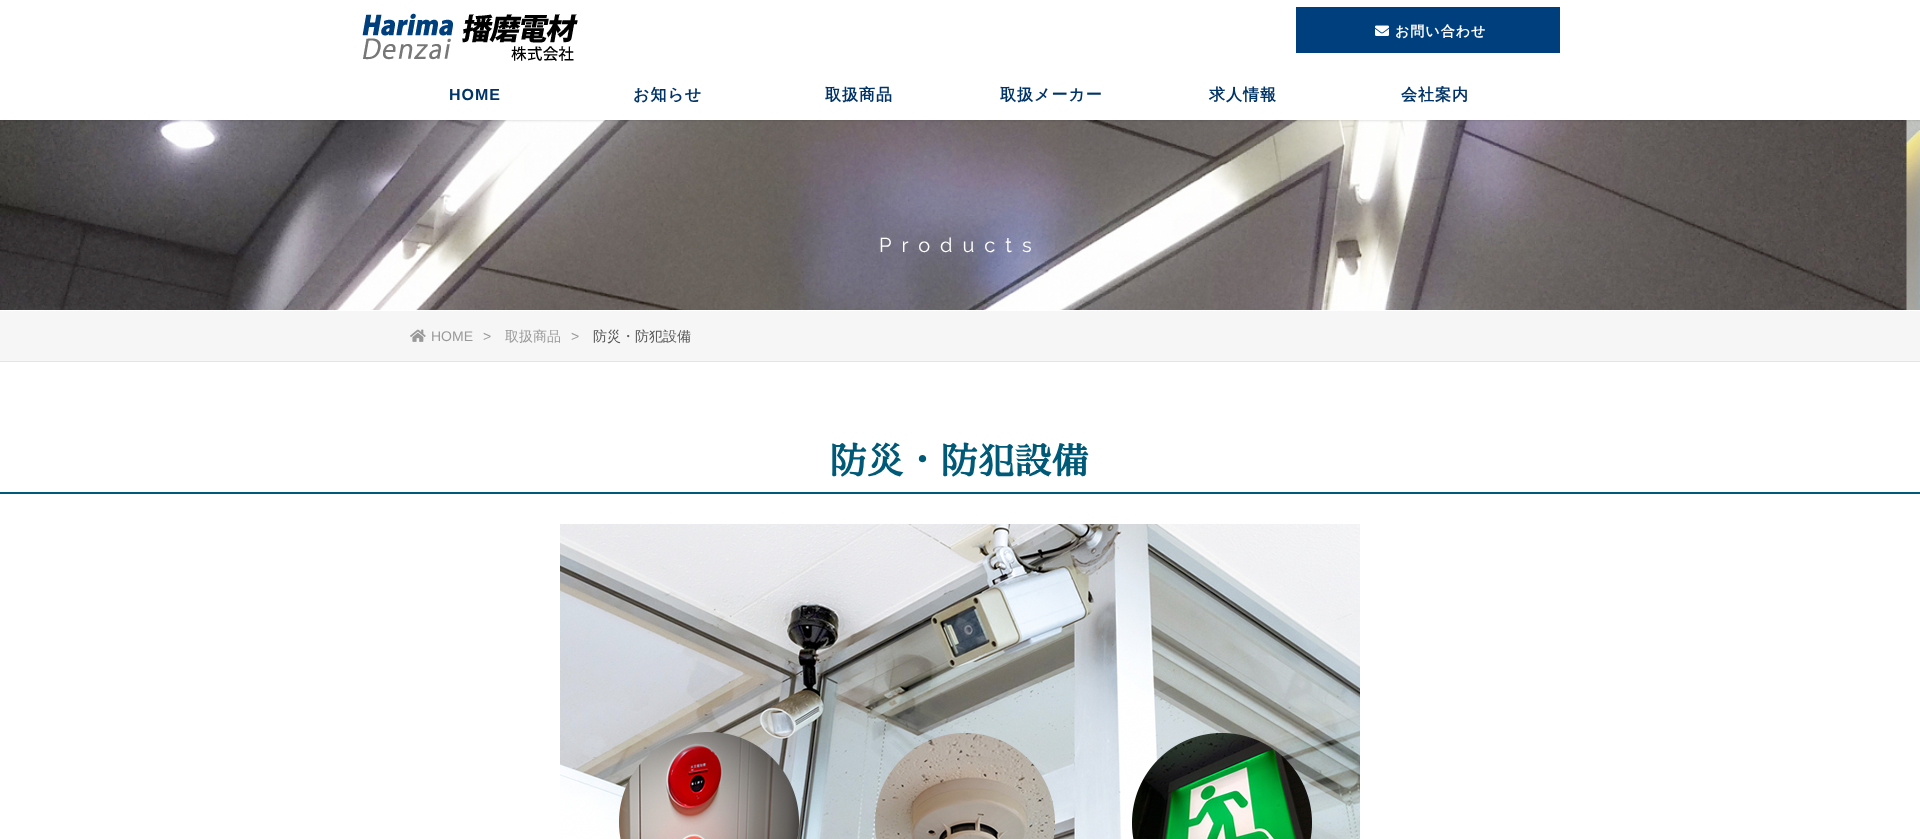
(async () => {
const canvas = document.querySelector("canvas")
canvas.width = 1920
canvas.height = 839
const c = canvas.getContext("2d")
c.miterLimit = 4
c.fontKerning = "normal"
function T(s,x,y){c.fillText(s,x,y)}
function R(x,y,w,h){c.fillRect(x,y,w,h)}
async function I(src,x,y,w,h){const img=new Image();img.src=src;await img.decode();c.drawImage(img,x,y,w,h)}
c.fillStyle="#fff"
R(0,0,1920,839)
await I("3.png",0,120,1920,190)
c.fillStyle="#00000033"
c.filter="blur(1.5px)"
c.beginPath()
c.rect(0,0,1920,120)
c.fill()
c.filter="none"
c.fillStyle="#fff"
R(0,0,1920,120)
await I("1.png",362,13,216,48)
c.fillStyle="#003f7d"
R(1296,7,264,46)
await I("2.png",1375,25,14,11)
c.letterSpacing="1px"
c.font="bold 14px WenQuanYi Zen Hei"
c.fillStyle="#fff"
T("お問い合わせ",1395,36)
c.font="bold 16px Liberation Sans"
c.fillStyle="#036"
T("HOME",449,100)
c.font="bold 16px WenQuanYi Zen Hei"
T("お知らせ",633,100)
T("取扱商品",825,100)
T("取扱メーカー",1000,100)
T("求人情報",1209,100)
T("会社案内",1401,100)
c.letterSpacing="10px"
c.font="100 20px Raleway"
c.fillStyle="#fff"
T("Products",879,252)
c.fillStyle="#f6f6f6"
R(0,311,1920,50)
c.fillStyle="#e5e5e5"
R(0,361,1920,1)
await I("4.png",410,329,16,13)
c.letterSpacing="0px"
c.font="14px Liberation Sans"
c.fillStyle="#999"
T("HOME",431,341)
T(">",483,341)
c.font="500 14px WenQuanYi Zen Hei"
T("取扱商品",505,341)
c.font="14px Liberation Sans"
T(">",571,341)
c.font="500 14px WenQuanYi Zen Hei"
c.fillStyle="#555"
T("防災・防犯設備",593,341)
c.fillStyle="#005977"
R(0,492,1920,2)
c.letterSpacing="1px"
c.font="bold 36px Sawarabi Mincho"
T("防災・防犯設備",830,474)
await I("5.png",560,524,800,315)
})()
